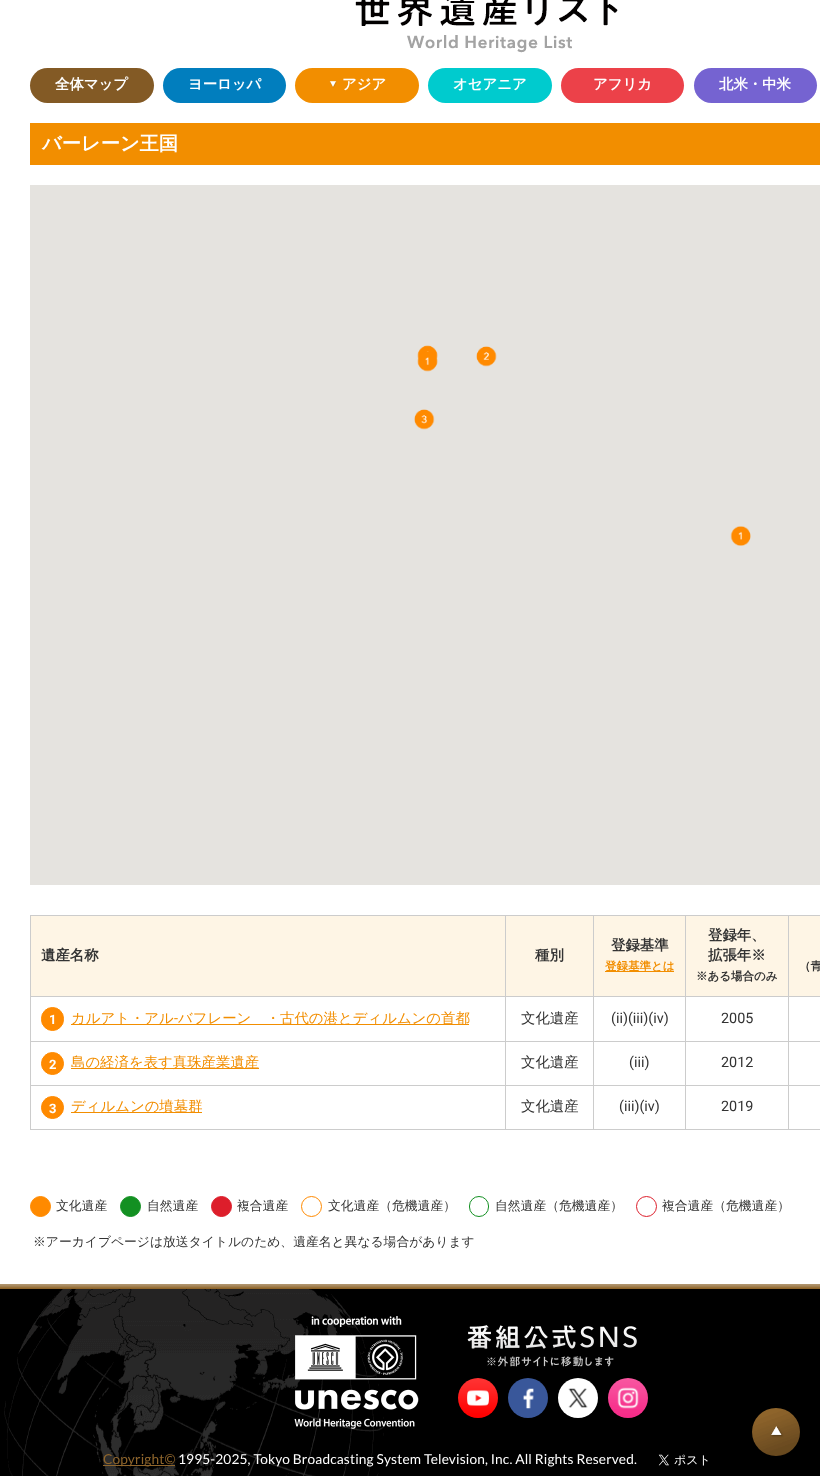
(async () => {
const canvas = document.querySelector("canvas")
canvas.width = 820
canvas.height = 1476
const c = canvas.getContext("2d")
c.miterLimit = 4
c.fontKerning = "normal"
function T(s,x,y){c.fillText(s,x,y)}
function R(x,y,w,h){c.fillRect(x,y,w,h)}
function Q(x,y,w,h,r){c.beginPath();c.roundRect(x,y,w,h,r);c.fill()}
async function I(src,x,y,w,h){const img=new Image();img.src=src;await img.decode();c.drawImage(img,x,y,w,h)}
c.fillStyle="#fff"
R(0,0,820,1476)
await I("1.png",355,0,263,53)
c.fillStyle="#835a25"
Q(30,68,124,35,17.5)
c.font="bold 14.4px WenQuanYi Zen Hei"
c.fillStyle="#fff"
T("全体マップ",55,89)
c.fillStyle="#017ebe"
Q(163,68,123,35,17.5)
c.fillStyle="#fff"
T("ヨーロッパ",188,89)
c.fillStyle="#f28e00"
Q(295,68,124,35,17.5)
await I("2.png",329,81,8,7)
c.fillStyle="#fff"
T("アジア",342,89)
c.fillStyle="#00cbce"
Q(428,68,124,35,17.5)
c.fillStyle="#fff"
T("オセアニア",453,89)
c.fillStyle="#ec4149"
Q(561,68,123,35,17.5)
c.fillStyle="#fff"
T("アフリカ",593,89)
c.fillStyle="#7563d1"
Q(694,68,123,35,17.5)
c.fillStyle="#fff"
T("北米・中米",719,89)
c.fillStyle="#f28e00"
R(30,123,790,42)
c.font="bold 19.25px WenQuanYi Zen Hei"
c.fillStyle="#fff"
T("バーレーン王国",42,150)
c.fillStyle="#e5e3df"
R(30,185,790,700)
await I("3.png",414,345,79,85)
await I("4.png",493,349,4,15)
await I("5.png",730,526,21,20)
c.fillStyle="#ccc"
R(30,915,790,1)
R(30,1129,790,1)
R(30,915,1,215)
c.fillStyle="#fef5e5"
R(31,916,474,80)
c.font="bold 14.4px WenQuanYi Zen Hei"
c.fillStyle="#333"
T("遺産名称",41,960)
c.fillStyle="#fef5e5"
R(506,916,87,80)
c.fillStyle="#ccc"
R(788,996,32,1)
R(788,1041,32,1)
R(788,1085,32,1)
R(788,1085,1,45)
R(685,1085,104,1)
R(788,1041,1,45)
R(685,1041,104,1)
R(788,996,1,46)
R(685,996,104,1)
R(685,1085,1,45)
R(593,1085,93,1)
R(685,1041,1,45)
R(593,1041,93,1)
R(685,996,1,46)
R(593,996,93,1)
R(593,1085,1,45)
R(505,1085,89,1)
R(593,1041,1,45)
R(505,1041,89,1)
R(593,996,1,46)
R(505,996,89,1)
R(505,1085,1,45)
R(30,1085,476,1)
R(505,1041,1,45)
R(30,1041,476,1)
R(505,996,1,46)
R(30,996,476,1)
R(505,915,1,82)
c.fillStyle="#333"
T("種別",535,960)
c.fillStyle="#fef5e5"
R(594,916,91,80)
c.fillStyle="#ccc"
R(593,915,1,82)
c.fillStyle="#333"
T("登録基準",611,950)
c.fillStyle="#f28e00"
R(605,971,69,1)
c.font="bold 11.5px WenQuanYi Zen Hei"
T("登録基準とは",605,970)
c.fillStyle="#fef5e5"
R(686,916,102,80)
c.fillStyle="#ccc"
R(685,915,1,82)
c.font="bold 14.4px WenQuanYi Zen Hei"
c.fillStyle="#333"
T("登録年、",708,940)
T("拡張年※",708,960)
c.font="bold 11.5px WenQuanYi Zen Hei"
T("※ある場合のみ",696,980)
c.fillStyle="#fef5e5"
R(789,916,31,80)
c.fillStyle="#ccc"
R(788,915,1,82)
c.fillStyle="#333"
T("（青",799,970)
c.fillStyle="#ff8a00"
c.beginPath()
c.roundRect(41.5,1007.5,22,23,11)
c.fill()
c.strokeStyle="#ff8a00"
c.stroke()
c.font="bold 13px Roboto"
c.fillStyle="#fff"
T("1",49,1024)
c.fillStyle="#f28e00"
R(71,1024,398,1)
c.font="500 14.4px WenQuanYi Zen Hei"
T("カルアト・アル",71,1023)
c.font="14.4px Roboto"
T("-",174,1023)
c.font="500 14.4px WenQuanYi Zen Hei"
T("バフレーン　・古代の港とディルムンの首都",178,1023)
c.fillStyle="#333"
T("文化遺産",521,1023)
c.font="14.4px Roboto"
T("(ii)(iii)(iv)",611,1023)
T("2005",721,1023)
c.fillStyle="#ff8a00"
c.beginPath()
c.arc(52.5,1063.5,11,0,7)
c.fill()
c.stroke()
c.font="bold 13px Roboto"
c.fillStyle="#fff"
T("2",49,1069)
c.fillStyle="#f28e00"
R(71,1068,188,1)
c.font="500 14.4px WenQuanYi Zen Hei"
T("島の経済を表す真珠産業遺産",71,1067)
c.fillStyle="#333"
T("文化遺産",521,1067)
c.font="14.4px Roboto"
T("(iii)",629,1067)
T("2012",721,1067)
c.fillStyle="#ff8a00"
c.beginPath()
c.arc(52.5,1107.5,11,0,7)
c.fill()
c.stroke()
c.font="bold 13px Roboto"
c.fillStyle="#fff"
T("3",49,1113)
c.fillStyle="#f28e00"
R(71,1112,131,1)
c.font="500 14.4px WenQuanYi Zen Hei"
T("ディルムンの墳墓群",71,1111)
c.fillStyle="#333"
T("文化遺産",521,1111)
c.font="14.4px Roboto"
T("(iii)(iv)",619,1111)
T("2019",721,1111)
c.fillStyle="#ff8a00"
c.beginPath()
c.arc(40.5,1206.5,10,0,7)
c.fill()
c.stroke()
c.font="500 12.8px WenQuanYi Zen Hei"
c.fillStyle="#333"
T("文化遺産",56,1210)
c.fillStyle="#139022"
c.beginPath()
c.arc(130.5,1206.5,10,0,7)
c.fill()
c.strokeStyle="#139022"
c.stroke()
c.fillStyle="#333"
T("自然遺産",147,1210)
c.fillStyle="#dd1e2b"
c.beginPath()
c.arc(221.5,1206.5,10,0,7)
c.fill()
c.strokeStyle="#dd1e2b"
c.stroke()
c.fillStyle="#333"
T("複合遺産",237,1210)
c.beginPath()
c.arc(311.5,1206.5,10,0,7)
c.strokeStyle="#ff8a00"
c.stroke()
T("文化遺産（危機遺産）",328,1210)
c.beginPath()
c.roundRect(469.5,1196.5,19,20,9.5)
c.strokeStyle="#139022"
c.stroke()
T("自然遺産（危機遺産）",495,1210)
c.beginPath()
c.arc(646.5,1206.5,10,0,7)
c.strokeStyle="#dd1e2b"
c.stroke()
T("複合遺産（危機遺産）",662,1210)
T("※アーカイブページは放送タイトルのため、遺産名と異なる場合があります",33,1246)
await I("6.png",0,1284,820,5)
c.fillStyle="#000"
R(0,1289,820,187)
await I("7.png",752,1408,48,48)
await I("8.png",4,1289,381,187)
await I("9.png",294,1316,125,113)
await I("10.png",467,1325,170,42)
await I("11.png",458,1378,40,40)
await I("12.png",508,1378,40,40)
await I("13.png",558,1378,40,40)
await I("14.png",608,1378,40,40)
c.fillStyle="#90662c"
R(103,1465,72,1)
c.letterSpacing="0.15px"
c.font="13.7px Lato"
T("Copyright©",103,1464)
c.fillStyle="#fff"
T("1995-2025, Tokyo Broadcasting System Television, Inc. All Rights Reserved.",178,1464)
await I("15.png",658,1454,50,12)
})()
